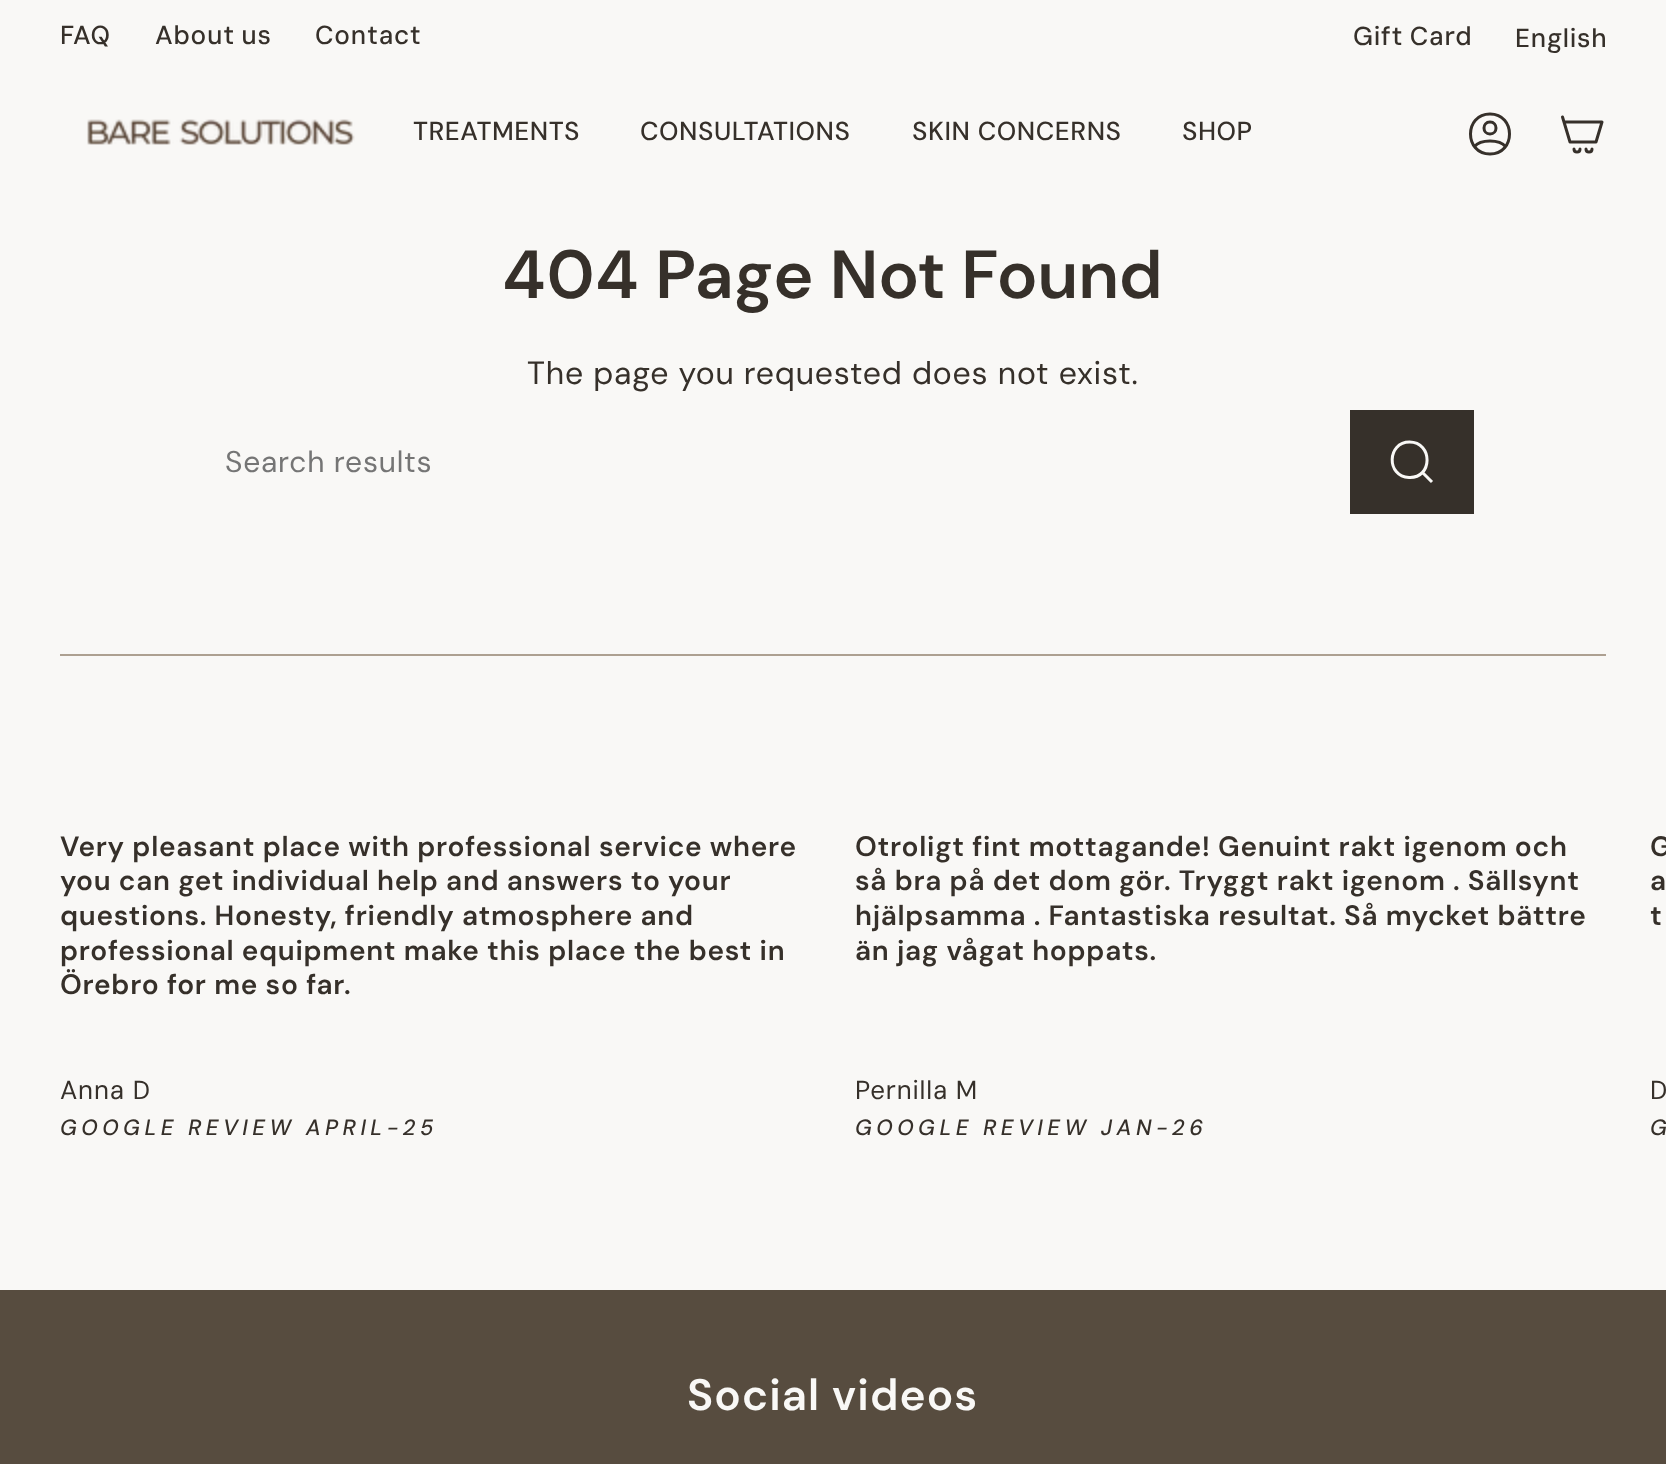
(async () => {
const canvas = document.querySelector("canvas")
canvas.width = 1666
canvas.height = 1464
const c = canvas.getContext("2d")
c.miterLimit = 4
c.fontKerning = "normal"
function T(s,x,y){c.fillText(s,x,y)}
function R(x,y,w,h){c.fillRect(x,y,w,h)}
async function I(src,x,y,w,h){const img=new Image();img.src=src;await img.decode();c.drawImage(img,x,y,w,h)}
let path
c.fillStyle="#f9f8f6"
R(0,0,1666,1464)
c.letterSpacing="0.75px"
c.font="500 26px DM Sans"
c.fillStyle="#36302a"
T("FAQ",60,44)
c.wordSpacing="-1px"
T("About us",155,44)
c.wordSpacing="0px"
T("Contact",315,44)
c.wordSpacing="-1px"
T("Gift Card",1353,45)
c.wordSpacing="0px"
T("English",1515,47)
await I("1.png",87,119,268,26)
c.letterSpacing="0.5px"
T("TREATMENTS",413,140)
T("CONSULTATIONS",640,140)
T("SKIN CONCERNS",912,140)
T("SHOP",1182,140)
path = new Path2D("M1490 114c-26 0-26 40 0 40c26 0 26-40 0-40zm-15.5 32.5c6-7.5 25-7.5 31 0m-15.5-12.5c8 0 8-12 0-12c-8 0-8 12 0 12z")
c.strokeStyle="#36302a"
c.lineWidth=3
c.lineCap="round"
c.lineJoin="round"
c.stroke(path)
path = new Path2D("M1564 122h38l-6 20h-26zm0 0l-1.5-5m17.5 32c0 4-6 4-6 0m18 0c0 4-6 4-6 0")
c.stroke(path)
c.letterSpacing="1.75px"
c.font="600 68px 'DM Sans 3'"
T("404 Page Not Found",503,298)
c.letterSpacing="0.8px"
c.font="32px DM Sans"
T("The page you requested does not exist.",527,384)
c.letterSpacing="0.75px"
c.font="30px 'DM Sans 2'"
c.fillStyle="#757575"
T("Search results",225,472)
c.fillStyle="#36302a"
R(1350,410,124,104)
path = new Path2D("M1409.5 442c23.5 0 23.5 36.5-.5 35.5c-23-1-22-35.5 .5-35.5zm12.5 30l10 10")
c.strokeStyle="#f9f8f6"
c.lineCap="butt"
c.lineJoin="miter"
c.stroke(path)
c.fillStyle="#ada091"
R(60,654,1546,2)
c.letterSpacing="0.7px"
c.font="600 28px DM Sans"
c.fillStyle="#36302a"
T("Very pleasant place with professional service where",60,856)
T("you can get individual help and answers to your",60,890)
T("questions. Honesty, friendly atmosphere and",60,925)
T("professional equipment make this place the best in",60,960)
T("Örebro for me so far.",60,994)
c.letterSpacing="0.8px"
c.font="26px 'DM Sans 3'"
T("Anna D",60,1099)
c.letterSpacing="4.4px"
c.font="italic 500 22px DM Sans"
T("GOOGLE REVIEW APRIL-25",60,1135)
c.letterSpacing="0.7px"
c.font="600 28px DM Sans"
T("Otroligt fint mottagande! Genuint rakt igenom och",855,856)
T("så bra på det dom gör. Tryggt rakt igenom . Sällsynt",855,890)
T("hjälpsamma . Fantastiska resultat. Så mycket bättre",855,925)
T("än jag vågat hoppats.",855,960)
c.letterSpacing="0.8px"
c.font="26px 'DM Sans 3'"
T("Pernilla M",855,1099)
c.letterSpacing="4.4px"
c.font="italic 500 22px DM Sans"
T("GOOGLE REVIEW JAN-26",855,1135)
c.letterSpacing="0.7px"
c.font="600 28px DM Sans"
T("G",1650,856)
T("a",1650,890)
T("t",1650,925)
c.letterSpacing="0.8px"
c.font="26px 'DM Sans 3'"
T("D",1650,1099)
c.letterSpacing="4.4px"
c.font="italic 500 22px DM Sans"
T("G",1650,1135)
c.fillStyle="#574c3f"
R(0,1290,1666,174)
c.letterSpacing="1.1px"
c.font="600 44px 'DM Sans 2'"
c.fillStyle="#f9f8f6"
T("Social videos",687,1410)
})()
